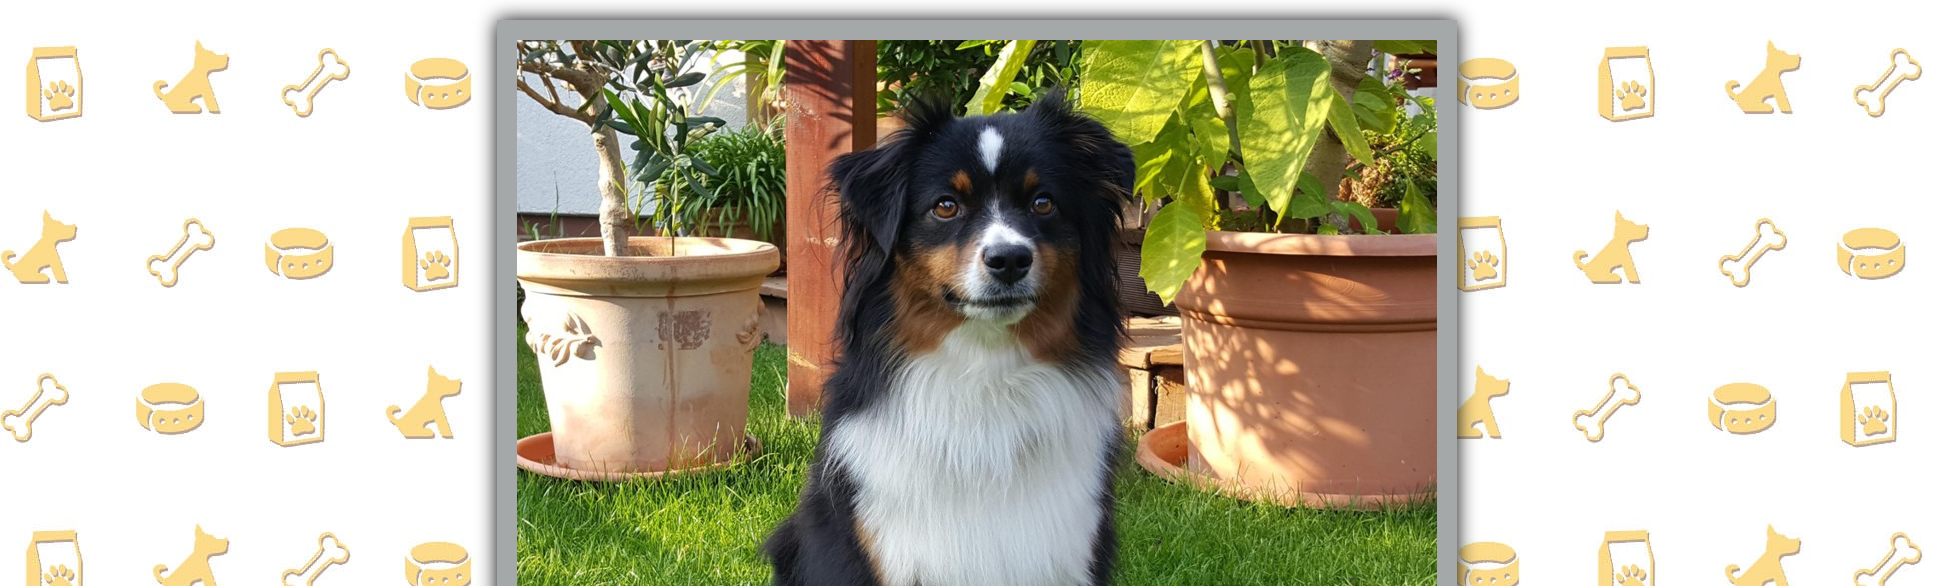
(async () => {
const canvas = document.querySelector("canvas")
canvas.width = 1954
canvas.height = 586
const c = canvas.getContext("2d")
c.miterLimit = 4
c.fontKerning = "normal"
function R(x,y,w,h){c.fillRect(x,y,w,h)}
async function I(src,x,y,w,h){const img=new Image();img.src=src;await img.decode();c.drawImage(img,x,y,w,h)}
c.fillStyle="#fff"
R(0,0,1954,586)
await I("1.png",0,0,1954,586)
c.fillStyle="#000"
c.filter="blur(10px)"
c.beginPath()
c.rect(497,20,960,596)
c.fill()
c.filter="none"
c.fillStyle="#a4a8a8"
R(497,20,960,566)
await I("2.png",517,40,920,546)
})()
